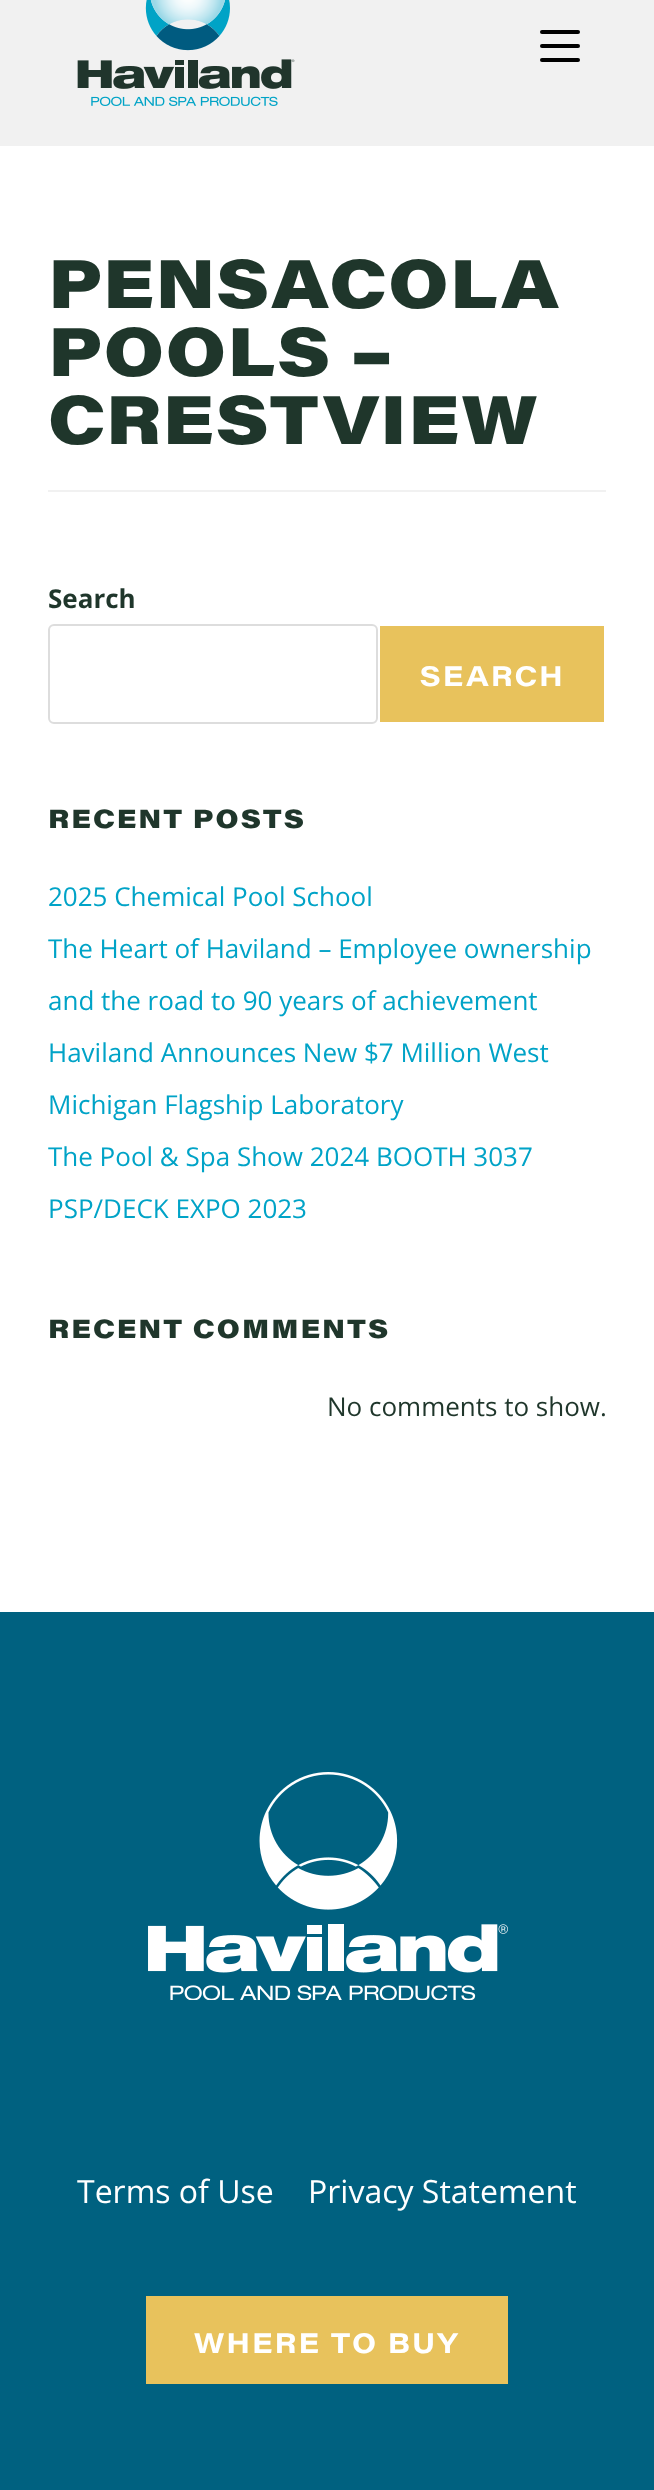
(async () => {
const canvas = document.querySelector("canvas")
canvas.width = 654
canvas.height = 2490
const c = canvas.getContext("2d")
c.miterLimit = 4
c.fontKerning = "normal"
function T(s,x,y){c.fillText(s,x,y)}
function R(x,y,w,h){c.fillRect(x,y,w,h)}
function Q(x,y,w,h,r){c.beginPath();c.roundRect(x,y,w,h,r);c.fill()}
async function I(src,x,y,w,h){const img=new Image();img.src=src;await img.decode();c.drawImage(img,x,y,w,h)}
c.fillStyle="#fff"
R(0,0,654,2490)
c.fillStyle="#f1f1f1"
R(0,0,654,146)
await I("1.png",77,0,218,106)
c.fillStyle="#000"
Q(540,44,40,4,2)
Q(540,30,40,4,2)
Q(540,58,40,4,2)
c.fillStyle="#f1f1f1"
R(48,490,558,2)
c.letterSpacing="1.25px"
c.font="900 68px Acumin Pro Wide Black"
c.fillStyle="#1f362b"
T("PENSACOLA",48,308)
T("POOLS –",48,376)
T("CRESTVIEW",48,444)
c.letterSpacing="0px"
c.font="bold 26px Open Sans"
T("Search",48,608)
c.beginPath()
c.roundRect(49,625,328,98,5)
c.strokeStyle="#ddd"
c.lineWidth=2
c.stroke()
c.fillStyle="#e8c25c"
R(380,626,224,96)
c.letterSpacing="2px"
c.font="bold 28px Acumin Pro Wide"
c.fillStyle="#fff"
T("SEARCH",420,686)
c.font="900 26px Acumin Pro Wide Black"
c.fillStyle="#1f362b"
T("RECENT POSTS",48,828)
c.letterSpacing="0px"
c.font="26px Open Sans"
c.fillStyle="#00a3c7"
T("2025 Chemical Pool School",48,906)
T("The Heart of Haviland – Employee ownership",48,958)
T("and the road to 90 years of achievement",48,1010)
T("Haviland Announces New $7 Million West",48,1062)
T("Michigan Flagship Laboratory",48,1114)
T("The Pool & Spa Show 2024 BOOTH 3037",48,1166)
T("PSP/DECK EXPO 2023",48,1218)
c.letterSpacing="2px"
c.font="900 26px Acumin Pro Wide Black"
c.fillStyle="#1f362b"
T("RECENT COMMENTS",48,1338)
c.letterSpacing="0px"
c.font="26px Open Sans"
T("No comments to show.",327,1416)
c.fillStyle="#006180"
R(0,1612,654,878)
await I("2.png",148,1772,360,228)
c.font="32px Open Sans"
c.fillStyle="#fff"
T("Terms of Use",77,2203)
T("Privacy Statement",308,2203)
c.fillStyle="#e8c25c"
R(146,2296,362,88)
c.letterSpacing="2px"
c.font="bold 28px Acumin Pro Wide"
c.fillStyle="#fff"
T("WHERE TO BUY",194,2353)
})()
